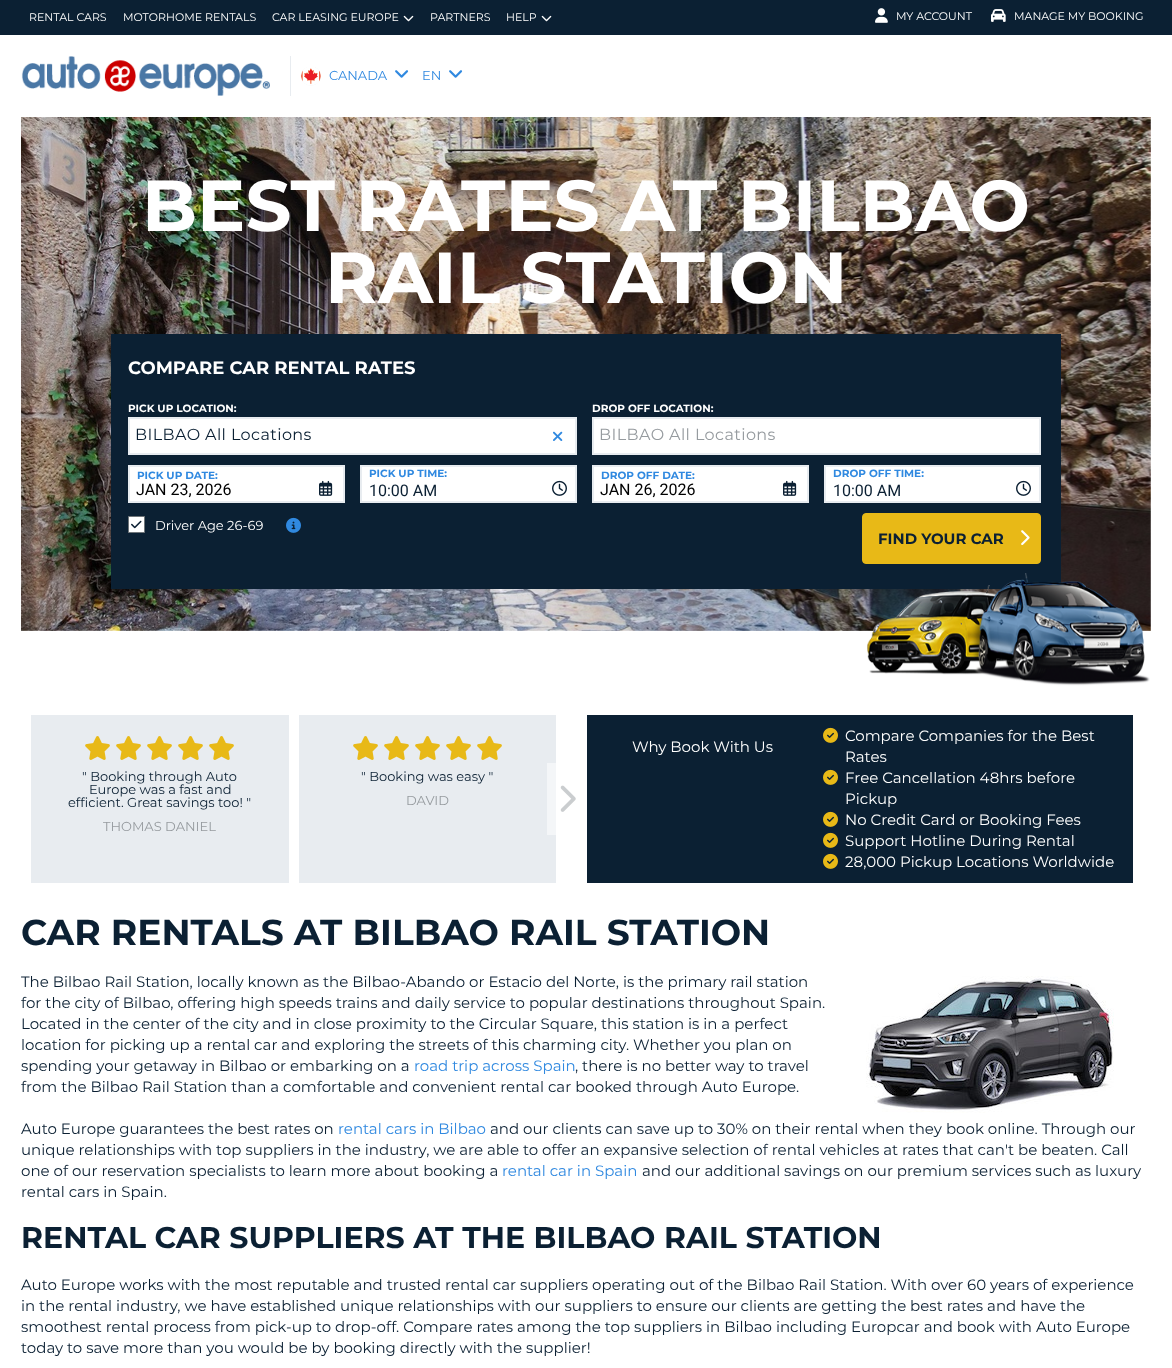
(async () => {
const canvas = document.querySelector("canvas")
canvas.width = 1172
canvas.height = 1368
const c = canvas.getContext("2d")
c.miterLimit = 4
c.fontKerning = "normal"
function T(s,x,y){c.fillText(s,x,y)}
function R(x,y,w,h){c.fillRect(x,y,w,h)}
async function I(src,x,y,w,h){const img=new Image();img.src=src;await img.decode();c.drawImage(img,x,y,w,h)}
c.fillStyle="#fff"
R(0,0,1172,1368)
c.fillStyle="#0b2033"
R(0,0,1172,35)
c.font="11px Montserrat"
c.fillStyle="#fff"
T("RENTAL CARS",29,21)
T("MOTORHOME RENTALS",123,21)
T("CAR LEASING EUROPE",272,21)
await I("1.png",403,15,11,7)
T("PARTNERS",430,21)
T("HELP",506,21)
await I("1.png",541,15,11,7)
await I("2.png",875,8,13,15)
T("MY ACCOUNT",896,20)
await I("3.png",991,9,15,13)
T("MANAGE MY BOOKING",1014,20)
c.fillStyle="#e8ecf0"
R(290,56,1,40)
await I("4.png",21,56,249,40)
await I("5.png",301,67,20,19)
c.font="13px Montserrat"
c.fillStyle="#3089e0"
T("CANADA",329,80)
await I("6.png",395,70,14,8)
T("EN",422,80)
await I("6.png",449,70,14,8)
await I("7.png",21,117,1130,514)
c.font="bold 72px Montserrat"
c.fillStyle="#fff"
T("BEST RATES AT BILBAO",142,231)
T("RAIL STATION",325,303)
c.fillStyle="#0b2033"
R(111,334,950,255)
c.font="bold 18px Montserrat"
c.fillStyle="#fff"
T("COMPARE CAR RENTAL RATES",128,374)
c.font="bold 10.5px Montserrat"
T("PICK UP LOCATION:",128,412)
c.beginPath()
c.rect(129,418,447,36)
c.fill()
c.strokeStyle="#e8ecf0"
c.lineWidth=2
c.stroke()
c.letterSpacing="0.4px"
c.font="16px Montserrat"
c.fillStyle="#0b2033"
T("BILBAO All Locations",135,440)
await I("8.png",553,431,10,10)
c.letterSpacing="0px"
c.font="bold 10.5px Montserrat"
c.fillStyle="#fff"
T("DROP OFF LOCATION:",592,412)
c.beginPath()
c.rect(593,418,447,36)
c.fill()
c.stroke()
c.letterSpacing="0.4px"
c.font="16px Montserrat"
c.fillStyle="#969b9f"
T("BILBAO All Locations",599,440)
c.fillStyle="#fff"
c.beginPath()
c.rect(129,466,215,36)
c.fill()
c.stroke()
c.letterSpacing="0px"
c.font="bold 10.5px Montserrat"
c.fillStyle="#3089e0"
T("PICK UP DATE:",137,479)
c.font="16px Roboto"
c.fillStyle="#000"
T("JAN 23, 2026",136,495)
await I("9.png",319,480,14,16)
c.fillStyle="#fff"
c.beginPath()
c.rect(361,466,215,36)
c.fill()
c.stroke()
c.font="bold 10.5px Montserrat"
c.fillStyle="#3089e0"
T("PICK UP TIME:",369,477)
c.font="16px Roboto"
c.fillStyle="#0b2033"
T("10:00 AM",369,496)
await I("10.png",552,480,15,16)
c.fillStyle="#fff"
c.beginPath()
c.rect(593,466,215,36)
c.fill()
c.stroke()
c.font="bold 10.5px Montserrat"
c.fillStyle="#3089e0"
T("DROP OFF DATE:",601,479)
c.font="16px Roboto"
c.fillStyle="#000"
T("JAN 26, 2026",600,495)
await I("9.png",783,480,14,16)
c.fillStyle="#fff"
c.beginPath()
c.rect(825,466,215,36)
c.fill()
c.stroke()
c.font="bold 10.5px Montserrat"
c.fillStyle="#3089e0"
T("DROP OFF TIME:",833,477)
c.font="16px Roboto"
c.fillStyle="#0b2033"
T("10:00 AM",833,496)
await I("10.png",1016,480,15,16)
c.fillStyle="#fff"
c.beginPath()
c.rect(128.5,516.5,16,16)
c.fill()
c.strokeStyle="#6f7579"
c.lineWidth=1
c.stroke()
await I("11.png",131,520,11,9)
c.font="13px Montserrat"
T("Driver Age 26-69",155,530)
await I("12.png",286,517,15,16)
c.fillStyle="#e8b917"
c.beginPath()
c.roundRect(862.5,513.5,178,50,3.5)
c.fill()
c.strokeStyle="#e8b917"
c.stroke()
c.font="bold 15px Montserrat"
c.fillStyle="#0b2033"
T("FIND YOUR CAR",878,544)
await I("13.png",1021,530,9,15)
await I("14.png",867,573,283,113)
c.fillStyle="#e8ecf0"
R(31,715,258,168)
await I("15.png",85,736,25,24)
await I("15.png",116,736,25,24)
await I("15.png",147,736,25,24)
await I("15.png",178,736,25,24)
await I("15.png",209,736,25,24)
c.font="13px Montserrat"
c.fillStyle="#0b2033"
T("\" Booking through Auto",82,781)
T("Europe was a fast and",89,794)
T("efficient. Great savings too! \"",68,807)
c.fillStyle="#969b9f"
T("THOMAS DANIEL",103,831)
c.fillStyle="#e8ecf0"
R(299,715,257,168)
c.fillStyle="#f4f6f8"
R(547,763,9,72)
await I("15.png",353,736,25,24)
await I("15.png",384,736,25,24)
await I("15.png",415,736,25,24)
await I("15.png",446,736,25,24)
await I("15.png",477,736,25,24)
c.fillStyle="#0b2033"
T("\" Booking was easy \"",361,781)
c.fillStyle="#969b9f"
T("DAVID",406,805)
await I("16.png",560,785,16,27)
c.fillStyle="#0b2033"
R(587,715,546,168)
c.font="15px Montserrat"
c.fillStyle="#fff"
T("Why Book With Us",632,752)
await I("17.png",823,727,15,16)
T("Compare Companies for the Best",845,741)
T("Rates",845,762)
await I("17.png",823,769,15,16)
T("Free Cancellation 48hrs before",845,783)
T("Pickup",845,804)
await I("17.png",823,811,15,16)
T("No Credit Card or Booking Fees",845,825)
await I("17.png",823,832,15,16)
T("Support Hotline During Rental",845,846)
await I("17.png",823,853,15,16)
T("28,000 Pickup Locations Worldwide",845,867)
c.font="bold 36px Montserrat"
c.fillStyle="#0b2033"
T("CAR RENTALS AT BILBAO RAIL STATION",21,945)
c.font="15px Montserrat"
T("The Bilbao Rail Station, locally known as the Bilbao-Abando or Estacio del Norte, is the primary rail station",21,987)
await I("18.png",866,976,248,137)
T("for the city of Bilbao, offering high speeds trains and daily service to popular destinations throughout Spain.",21,1008)
T("Located in the center of the city and in close proximity to the Circular Square, this station is in a perfect",21,1029)
T("location for picking up a rental car and exploring the streets of this charming city. Whether you plan on",21,1050)
T("spending your getaway in Bilbao or embarking on a",21,1071)
c.fillStyle="#3089e0"
T("road trip across Spain",414,1071)
c.fillStyle="#0b2033"
T(", there is no better way to travel",575,1071)
T("from the Bilbao Rail Station than a comfortable and convenient rental car booked through Auto Europe.",21,1092)
T("Auto Europe guarantees the best rates on",21,1134)
c.fillStyle="#3089e0"
T("rental cars in Bilbao",338,1134)
c.fillStyle="#0b2033"
T("and our clients can save up to 30% on their rental when they book online. Through our",490,1134)
T("unique relationships with top suppliers in the industry, we are able to offer an expansive selection of rental vehicles at rates that can't be beaten. Call",21,1155)
T("one of our reservation specialists to learn more about booking a",21,1176)
c.fillStyle="#3089e0"
T("rental car in Spain",502,1176)
c.fillStyle="#0b2033"
T("and our additional savings on our premium services such as luxury",642,1176)
T("rental cars in Spain.",21,1197)
c.font="bold 30px Montserrat"
T("RENTAL CAR SUPPLIERS AT THE BILBAO RAIL STATION",21,1248)
c.font="15px Montserrat"
T("Auto Europe works with the most reputable and trusted rental car suppliers operating out of the Bilbao Rail Station. With over 60 years of experience",21,1290)
T("in the rental industry, we have established unique relationships with our suppliers to ensure our clients are getting the best rates and have the",21,1311)
T("smoothest rental process from pick-up to drop-off. Compare rates among the top suppliers in Bilbao including Europcar and book with Auto Europe",21,1332)
T("today to save more than you would be by booking directly with the supplier!",21,1353)
})()
